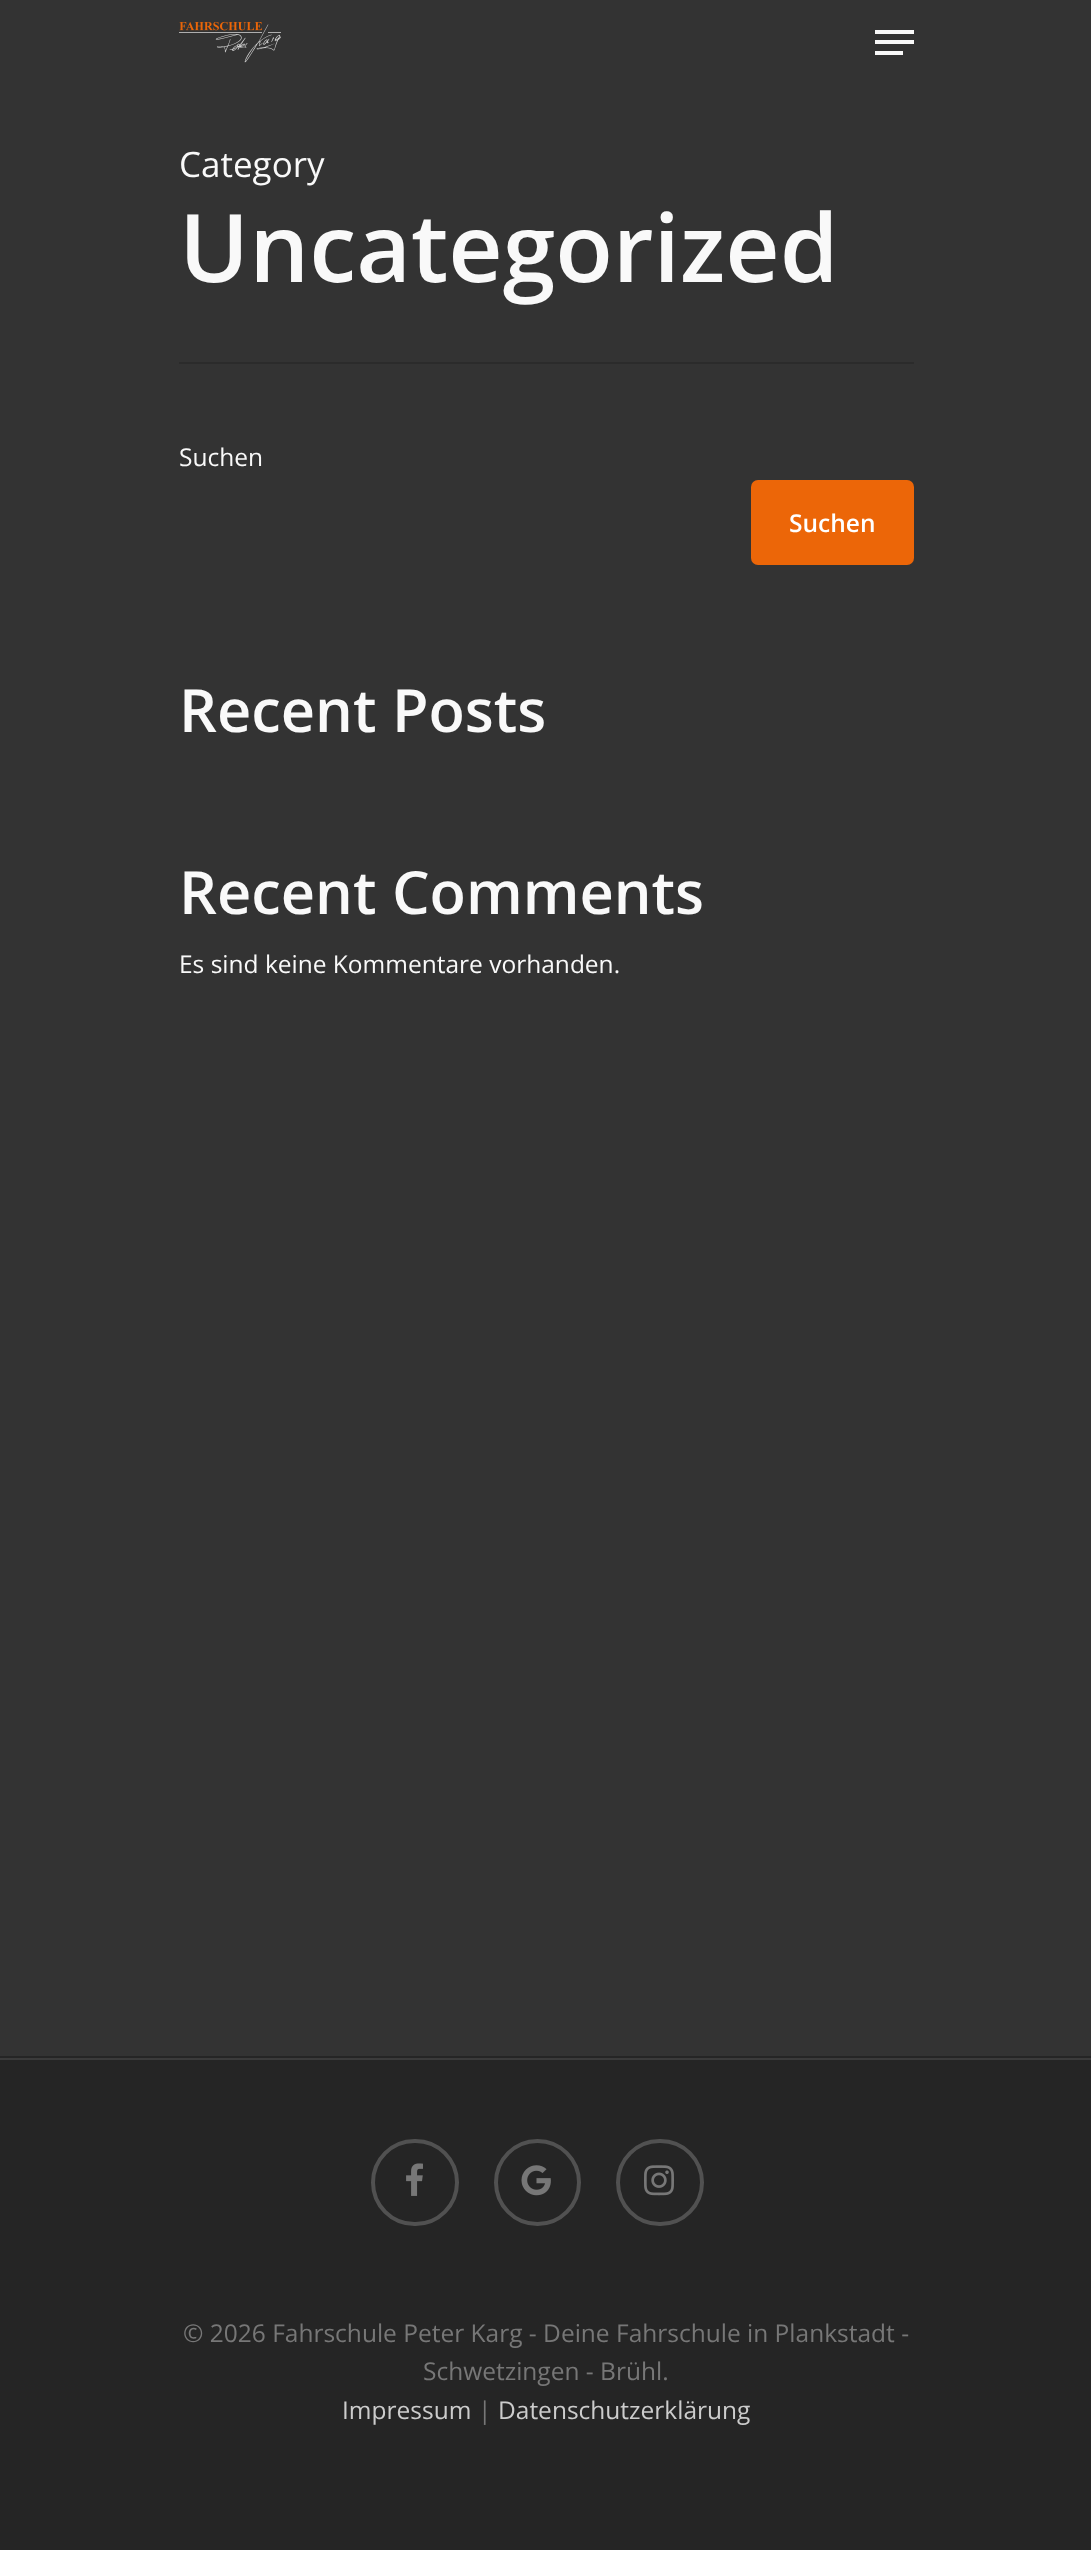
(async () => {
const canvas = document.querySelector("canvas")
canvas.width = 1091
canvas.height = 2550
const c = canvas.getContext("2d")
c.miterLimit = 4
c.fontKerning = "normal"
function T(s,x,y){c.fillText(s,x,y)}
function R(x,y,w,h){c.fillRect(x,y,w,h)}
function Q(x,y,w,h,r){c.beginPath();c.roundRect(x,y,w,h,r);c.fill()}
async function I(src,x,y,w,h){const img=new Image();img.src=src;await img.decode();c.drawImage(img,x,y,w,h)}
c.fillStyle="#333"
R(0,0,1091,2550)
await I("1.png",179,21,102,42)
c.fillStyle="#f9f9f9"
R(875,30,39,4)
R(875,51,28,4)
R(875,40,39,4)
c.fillStyle="#2b2b2b"
R(179,362,735,2)
c.font="35px Open Sans"
c.fillStyle="#f9f9f9"
T("Category",179,177)
c.font="600 94.5px Open Sans"
T("Uncategorized",179,282)
c.font="24.5px Open Sans"
T("Suchen",179,466)
c.fillStyle="#ec6608"
Q(751,480,163,85,7)
c.font="600 24.5px Open Sans"
c.fillStyle="#fff"
T("Suchen",789,532)
c.font="600 59.5px Open Sans"
c.fillStyle="#f9f9f9"
T("Recent Posts",179,732)
T("Recent Comments",179,914)
c.font="24.5px Open Sans"
T("Es sind keine Kommentare vorhanden.",179,973)
c.fillStyle="#252525"
R(0,2056,1091,494)
c.fillStyle="#3b3b3b"
R(0,2058,1091,2)
await I("2.png",406,2163,17,33)
c.beginPath()
c.roundRect(373,2141,84,83,41.5)
c.strokeStyle="#515151"
c.lineWidth=4
c.stroke()
await I("3.png",521,2165,30,31)
c.beginPath()
c.arc(537.5,2182.5,41.5,0,7)
c.stroke()
await I("4.png",644,2165,30,31)
c.beginPath()
c.roundRect(618,2141,84,83,41.5)
c.stroke()
c.fillStyle="#777"
T("© 2026 Fahrschule Peter Karg - Deine Fahrschule in Plankstadt -",183,2342)
T("Schwetzingen - Brühl.",423,2380)
c.fillStyle="#ccc"
T("Impressum",342,2419)
c.fillStyle="#777"
T("|",478,2419)
c.fillStyle="#ccc"
T("Datenschutzerklärung",498,2419)
})()
